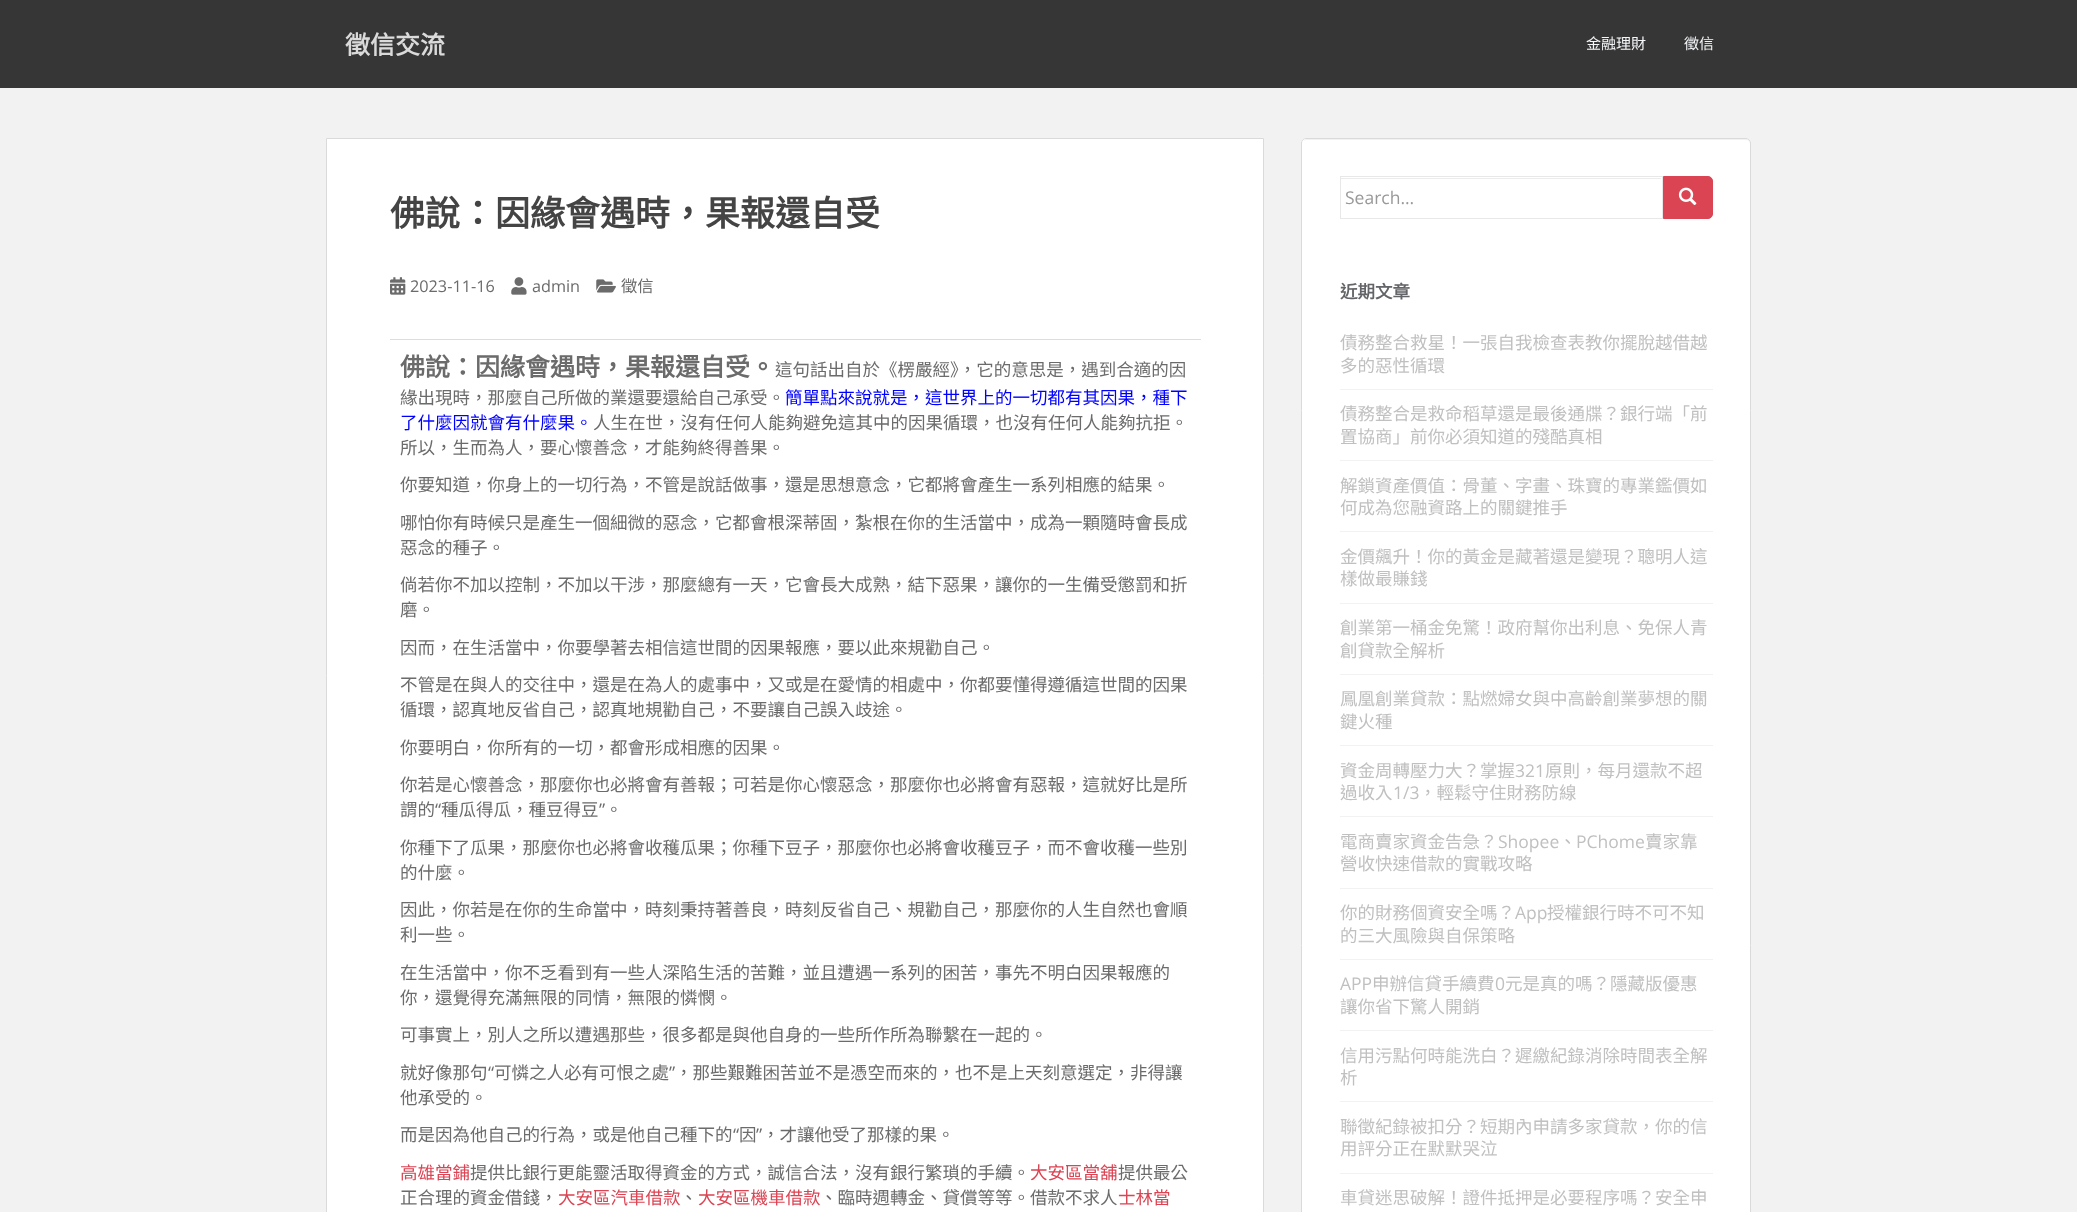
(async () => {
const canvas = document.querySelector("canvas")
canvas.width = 2077
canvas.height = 1212
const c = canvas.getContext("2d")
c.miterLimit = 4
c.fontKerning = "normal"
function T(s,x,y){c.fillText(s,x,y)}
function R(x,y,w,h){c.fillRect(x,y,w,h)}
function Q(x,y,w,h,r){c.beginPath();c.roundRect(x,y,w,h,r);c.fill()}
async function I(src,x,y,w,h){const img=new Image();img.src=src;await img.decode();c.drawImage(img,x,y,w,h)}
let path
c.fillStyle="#f2f2f2"
R(0,0,2077,1212)
c.fillStyle="#363636"
R(0,0,2077,88)
c.font="bold 25px Noto Sans CJK TC"
c.fillStyle="#dadada"
T("徵信交流",345,54)
c.font="15px Noto Sans CJK TC"
c.fillStyle="#f5f7fa"
T("金融理財",1586,49)
T("徵信",1684,49)
c.fillStyle="#fff"
c.beginPath()
c.rect(326.5,138.5,937,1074)
c.fill()
c.strokeStyle="#dadada"
c.stroke()
c.font="bold 35px Noto Sans CJK TC"
c.fillStyle="#444"
T("佛說：因緣會遇時，果報還自受",390,226)
await I("1.png",390,277,16,18)
c.font="16.25px Open Sans"
c.fillStyle="#6b6b6b"
T("2023-11-16",410,292)
await I("2.png",511,277,16,18)
T("admin",532,292)
await I("3.png",596,279,20,14)
c.font="16.25px Noto Sans CJK TC"
T("徵信",621,292)
c.fillStyle="#ddd"
R(390,339,811,1)
c.font="bold 25px Noto Sans CJK TC"
c.fillStyle="#6b6b6b"
T("佛說：因緣會遇時，果報還自受。",400,376)
c.font="17.5px Noto Sans CJK TC"
T("這句話出自於《楞嚴經》，它的意思是，遇到合適的因",775,376)
T("緣出現時，那麼自己所做的業還要還給自己承受。",400,404)
c.fillStyle="#00f"
T("簡單點來說就是，這世界上的一切都有其因果，種下",785,404)
T("了什麼因就會有什麼果。",400,429)
c.fillStyle="#6b6b6b"
T("人生在世，沒有任何人能夠避免這其中的因果循環，也沒有任何人能夠抗拒。",593,429)
T("所以，生而為人，要心懷善念，才能夠終得善果。",400,454)
T("你要知道，你身上的一切行為，不管是說話做事，還是思想意念，它都將會產生一系列相應的結果。",400,491)
T("哪怕你有時候只是產生一個細微的惡念，它都會根深蒂固，紮根在你的生活當中，成為一顆隨時會長成",400,529)
T("惡念的種子。",400,554)
T("倘若你不加以控制，不加以干涉，那麼總有一天，它會長大成熟，結下惡果，讓你的一生備受懲罰和折",400,591)
T("磨。",400,616)
T("因而，在生活當中，你要學著去相信這世間的因果報應，要以此來規勸自己。",400,654)
T("不管是在與人的交往中，還是在為人的處事中，又或是在愛情的相處中，你都要懂得遵循這世間的因果",400,691)
T("循環，認真地反省自己，認真地規勸自己，不要讓自己誤入歧途。",400,716)
T("你要明白，你所有的一切，都會形成相應的因果。",400,754)
T("你若是心懷善念，那麼你也必將會有善報；可若是你心懷惡念，那麼你也必將會有惡報，這就好比是所",400,791)
T("謂的",400,816)
c.font="17.5px Open Sans"
T("“",435,816)
c.font="17.5px Noto Sans CJK TC"
T("種瓜得瓜，種豆得豆",441,816)
c.font="17.5px Open Sans"
T("”",599,816)
c.font="17.5px Noto Sans CJK TC"
T("。",605,816)
T("你種下了瓜果，那麼你也必將會收穫瓜果；你種下豆子，那麼你也必將會收穫豆子，而不會收穫一些別",400,854)
T("的什麼。",400,879)
T("因此，你若是在你的生命當中，時刻秉持著善良，時刻反省自己、規勸自己，那麼你的人生自然也會順",400,916)
T("利一些。",400,941)
T("在生活當中，你不乏看到有一些人深陷生活的苦難，並且遭遇一系列的困苦，事先不明白因果報應的",400,979)
T("你，還覺得充滿無限的同情，無限的憐憫。",400,1004)
T("可事實上，別人之所以遭遇那些，很多都是與他自身的一些所作所為聯繫在一起的。",400,1041)
T("就好像那句",400,1079)
c.font="17.5px Open Sans"
T("“",488,1079)
c.font="17.5px Noto Sans CJK TC"
T("可憐之人必有可恨之處",494,1079)
c.font="17.5px Open Sans"
T("”",669,1079)
c.font="17.5px Noto Sans CJK TC"
T("，那些艱難困苦並不是憑空而來的，也不是上天刻意選定，非得讓",675,1079)
T("他承受的。",400,1104)
T("而是因為他自己的行為，或是他自己種下的",400,1141)
c.font="17.5px Open Sans"
T("“",733,1141)
c.font="17.5px Noto Sans CJK TC"
T("因",739,1141)
c.font="17.5px Open Sans"
T("”",756,1141)
c.font="17.5px Noto Sans CJK TC"
T("，才讓他受了那樣的果。",762,1141)
c.fillStyle="#da4453"
T("高雄當鋪",400,1179)
c.fillStyle="#6b6b6b"
T("提供比銀行更能靈活取得資金的方式，誠信合法，沒有銀行繁瑣的手續。",470,1179)
c.fillStyle="#da4453"
T("大安區當舖",1030,1179)
c.fillStyle="#6b6b6b"
T("提供最公",1118,1179)
T("正合理的資金借錢，",400,1204)
c.fillStyle="#da4453"
T("大安區汽車借款",558,1204)
c.fillStyle="#6b6b6b"
T("、",680,1204)
c.fillStyle="#da4453"
T("大安區機車借款",698,1204)
c.fillStyle="#6b6b6b"
T("、臨時週轉金、貸償等等。借款不求人",820,1204)
c.fillStyle="#da4453"
T("士林當",1118,1204)
c.fillStyle="#fff"
Q(1301,138,450,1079,5)
c.fillStyle="#f2f2f2"
path = new Path2D("M1306 140h440c2 0 4 2 4 4v-1c0-2-2-4-4-4h-439c-1 0-3 1-3 2z")
c.fill(path)
c.beginPath()
c.roundRect(1301.5,138.5,449,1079,4.5)
c.stroke()
c.fillStyle="#ececec"
R(1341,178,320,1)
c.strokeStyle="#e8e8e8"
c.strokeRect(1340.5,176.5,322,42)
c.font="17.5px Open Sans"
c.fillStyle="#999"
T("Search…",1345,204)
c.fillStyle="#da4453"
c.beginPath()
c.roundRect(1663.5,176.5,49,42,[0,4.5,4.5,0])
c.fill()
c.strokeStyle="#da4453"
c.stroke()
await I("4.png",1678,187,19,19)
c.font="bold 17.5px Noto Sans CJK TC"
c.fillStyle="#636467"
T("近期文章",1340,298)
c.fillStyle="#f2f2f2"
R(1340,389,373,1)
c.font="17.5px Noto Sans CJK TC"
c.fillStyle="#c1c0c0"
T("債務整合救星！一張自我檢查表教你擺脫越借越",1340,349)
T("多的惡性循環",1340,372)
c.fillStyle="#f2f2f2"
R(1340,460,373,1)
c.fillStyle="#c1c0c0"
T("債務整合是救命稻草還是最後通牒？銀行端「前",1340,420)
T("置協商」前你必須知道的殘酷真相",1340,443)
c.fillStyle="#f2f2f2"
R(1340,531,373,1)
c.fillStyle="#c1c0c0"
T("解鎖資產價值：骨董、字畫、珠寶的專業鑑價如",1340,492)
T("何成為您融資路上的關鍵推手",1340,514)
c.fillStyle="#f2f2f2"
R(1340,603,373,1)
c.fillStyle="#c1c0c0"
T("金價飆升！你的黃金是藏著還是變現？聰明人這",1340,563)
T("樣做最賺錢",1340,585)
c.fillStyle="#f2f2f2"
R(1340,674,373,1)
c.fillStyle="#c1c0c0"
T("創業第一桶金免驚！政府幫你出利息、免保人青",1340,634)
T("創貸款全解析",1340,657)
c.fillStyle="#f2f2f2"
R(1340,745,373,1)
c.fillStyle="#c1c0c0"
T("鳳凰創業貸款：點燃婦女與中高齡創業夢想的關",1340,705)
T("鍵火種",1340,728)
c.fillStyle="#f2f2f2"
R(1340,816,373,1)
c.fillStyle="#c1c0c0"
T("資金周轉壓力大？掌握",1340,777)
c.font="17.5px Open Sans"
T("321",1515,777)
c.font="17.5px Noto Sans CJK TC"
T("原則，每月還款不超",1545,777)
T("過收入",1340,799)
c.font="17.5px Open Sans"
T("1/3",1393,799)
c.font="17.5px Noto Sans CJK TC"
T("，輕鬆守住財務防線",1419,799)
c.fillStyle="#f2f2f2"
R(1340,888,373,1)
c.fillStyle="#c1c0c0"
T("電商賣家資金告急？",1340,848)
c.font="17.5px Open Sans"
T("Shopee",1498,848)
c.font="17.5px Noto Sans CJK TC"
T("、",1559,848)
c.font="17.5px Open Sans"
T("PChome",1576,848)
c.font="17.5px Noto Sans CJK TC"
T("賣家靠",1645,848)
T("營收快速借款的實戰攻略",1340,870)
c.fillStyle="#f2f2f2"
R(1340,959,373,1)
c.fillStyle="#c1c0c0"
T("你的財務個資安全嗎？",1340,919)
c.font="17.5px Open Sans"
T("App",1515,919)
c.font="17.5px Noto Sans CJK TC"
T("授權銀行時不可不知",1547,919)
T("的三大風險與自保策略",1340,942)
c.fillStyle="#f2f2f2"
R(1340,1030,373,1)
c.font="17.5px Open Sans"
c.fillStyle="#c1c0c0"
T("APP",1340,990)
c.font="17.5px Noto Sans CJK TC"
T("申辦信貸手續費",1372,990)
c.font="17.5px Open Sans"
T("0",1495,990)
c.font="17.5px Noto Sans CJK TC"
T("元是真的嗎？隱藏版優惠",1505,990)
T("讓你省下驚人開銷",1340,1013)
c.fillStyle="#f2f2f2"
R(1340,1101,373,1)
c.fillStyle="#c1c0c0"
T("信用污點何時能洗白？遲繳紀錄消除時間表全解",1340,1062)
T("析",1340,1084)
c.fillStyle="#f2f2f2"
R(1340,1173,373,1)
c.fillStyle="#c1c0c0"
T("聯徵紀錄被扣分？短期內申請多家貸款，你的信",1340,1133)
T("用評分正在默默哭泣",1340,1155)
T("車貸迷思破解！證件抵押是必要程序嗎？安全申",1340,1204)
})()
